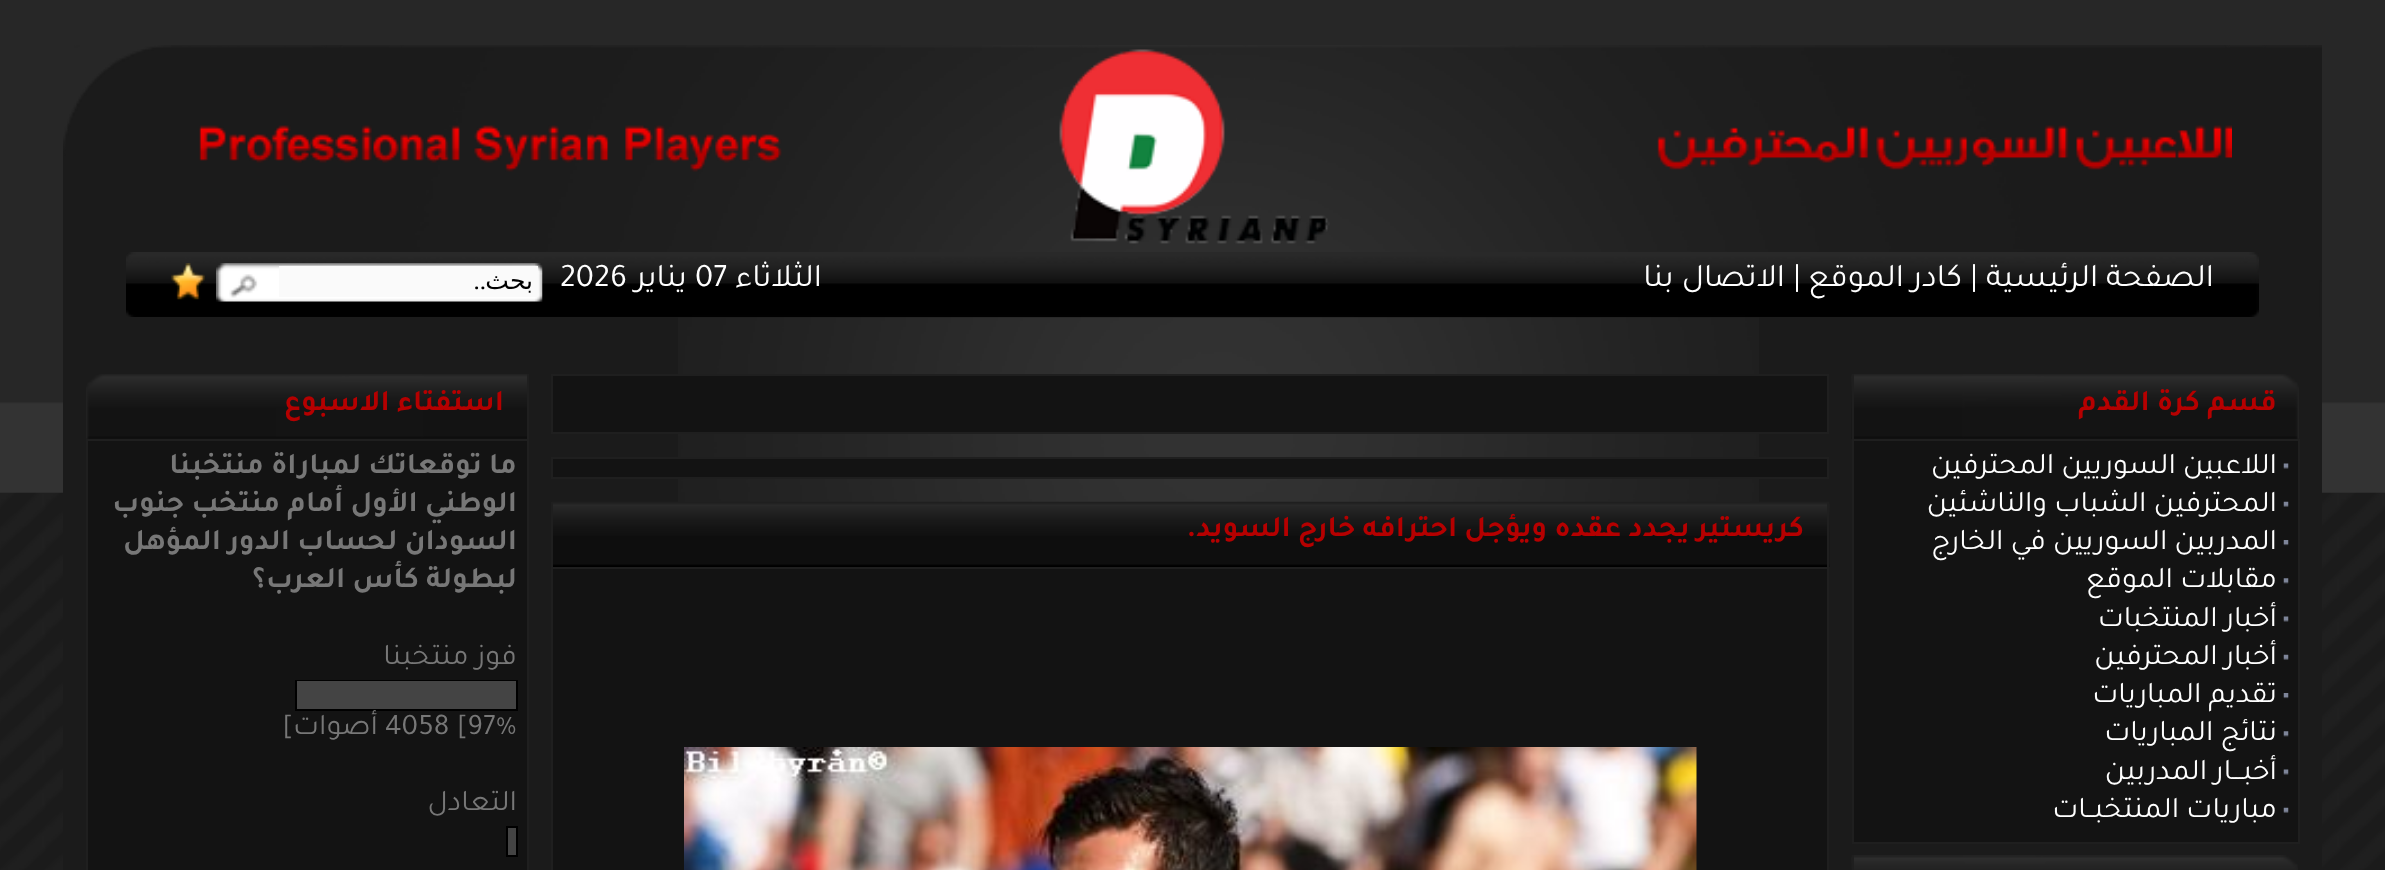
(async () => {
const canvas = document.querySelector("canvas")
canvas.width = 2385
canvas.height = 870
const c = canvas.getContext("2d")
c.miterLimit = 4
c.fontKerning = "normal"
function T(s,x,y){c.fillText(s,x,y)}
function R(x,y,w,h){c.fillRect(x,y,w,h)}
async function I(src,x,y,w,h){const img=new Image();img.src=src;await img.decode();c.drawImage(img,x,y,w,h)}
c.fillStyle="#fff"
R(0,0,2385,870)
await I("1.png",0,492,2385,378)
await I("2.png",0,0,2385,493)
await I("3.png",63,45,2259,272)
await I("4.png",1657,125,575,45)
await I("5.png",1059,49,271,195)
await I("6.png",199,125,583,47)
await I("7.png",126,252,2133,65)
c.direction="rtl"
c.font="33px Tajawal"
T("الصفحة الرئيسية",2214,286)
c.direction="ltr"
T("|",1970,286)
c.direction="rtl"
T("كادر الموقع",1962,286)
c.direction="ltr"
T("|",1793,286)
c.direction="rtl"
T("الاتصال بنا",1785,286)
T("الثلاثاء",822,286)
c.direction="ltr"
T("07",695,286)
c.direction="rtl"
T("يناير",687,286)
c.direction="ltr"
T("2026",560,286)
await I("8.png",216,263,327,39)
c.fillStyle="#fafafa"
R(279,266,259,31)
c.direction="rtl"
c.font="25px DejaVu Sans"
c.fillStyle="#000"
T("بحث",533,289)
c.font="25px Liberation Serif"
T("..",486,289)
await I("9.png",171,263,34,37)
c.fillStyle="#1b1b1b"
R(63,317,2259,553)
await I("10.png",678,317,1081,185)
await I("11.png",1851,374,448,65)
c.fillStyle="#1f1f1f"
R(1852,374,2,65)
c.font="bold 30px Tajawal"
c.fillStyle="#b50000"
T("قسم كرة القدم",2277,410)
c.fillStyle="#131313"
c.beginPath()
c.rect(1853,440,446,403)
c.fill()
c.strokeStyle="#1f1f1f"
c.lineWidth=2
c.stroke()
await I("12.png",2283,463,6,6)
c.font="30px Tajawal"
c.fillStyle="#fff"
T("اللاعبين السوريين المحترفين",2277,473)
await I("13.png",2283,501,6,6)
T("المحترفين الشباب والناشئين",2277,511)
await I("14.png",2283,540,6,6)
T("المدربين السوريين في الخارج",2277,549)
await I("15.png",2283,578,6,6)
T("مقابلات الموقع",2277,587)
await I("12.png",2283,616,6,6)
T("أخبار المنتخبات",2277,626)
await I("13.png",2283,654,6,6)
T("أخبار المحترفين",2277,664)
await I("14.png",2283,693,6,6)
T("تقديم المباريات",2277,702)
await I("15.png",2283,731,6,6)
T("نتائج المباريات",2277,740)
await I("12.png",2283,769,6,6)
T("أخبـــار المدربين",2277,779)
await I("13.png",2283,807,6,6)
T("مباريات المنتخبــات",2277,817)
await I("16.png",1851,855,447,15)
c.fillStyle="#1f1f1f"
R(1852,855,2,15)
c.fillStyle="#131313"
c.beginPath()
c.rect(552,375,1276,58)
c.fill()
c.stroke()
c.beginPath()
c.rect(552,458,1276,20)
c.fill()
c.stroke()
await I("17.png",551,501,1279,66)
c.fillStyle="#1f1f1f"
R(1827,502,2,65)
R(551,502,2,65)
c.font="bold 30px Tajawal"
c.fillStyle="#b50000"
T("كريستير يجدد عقده ويؤجل احترافه خارج السويد.",1804,536)
c.fillStyle="#131313"
c.beginPath()
c.rect(552,568,1276,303)
c.fill()
c.stroke()
await I("18.png",684,747,1013,123)
await I("19.png",86,374,441,65)
c.fillStyle="#1f1f1f"
R(527,374,2,65)
c.fillStyle="#b50000"
T("استفتاء الاسبوع",504,410)
c.fillStyle="#131313"
c.beginPath()
c.rect(87,440,441,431)
c.fill()
c.stroke()
c.fillStyle="#777"
T("ما توقعاتك لمباراة منتخبنا",517,473)
T("الوطني الأول أمام منتخب جنوب",517,511)
T("السودان لحساب الدور المؤهل",517,549)
T("لبطولة كأس العرب؟",517,587)
c.font="30px Tajawal"
T("فوز منتخبنا",517,664)
c.strokeStyle="#000"
c.strokeRect(296,681,221,29)
c.fillStyle="#444"
R(297,681,219,28)
c.direction="ltr"
c.fillStyle="#777"
T("4058 [97%",385,734)
c.direction="rtl"
T("أصوات]",378,734)
T("التعادل",517,810)
c.strokeRect(507,827,10,29)
c.fillStyle="#444"
R(508,828,8,27)
})()
